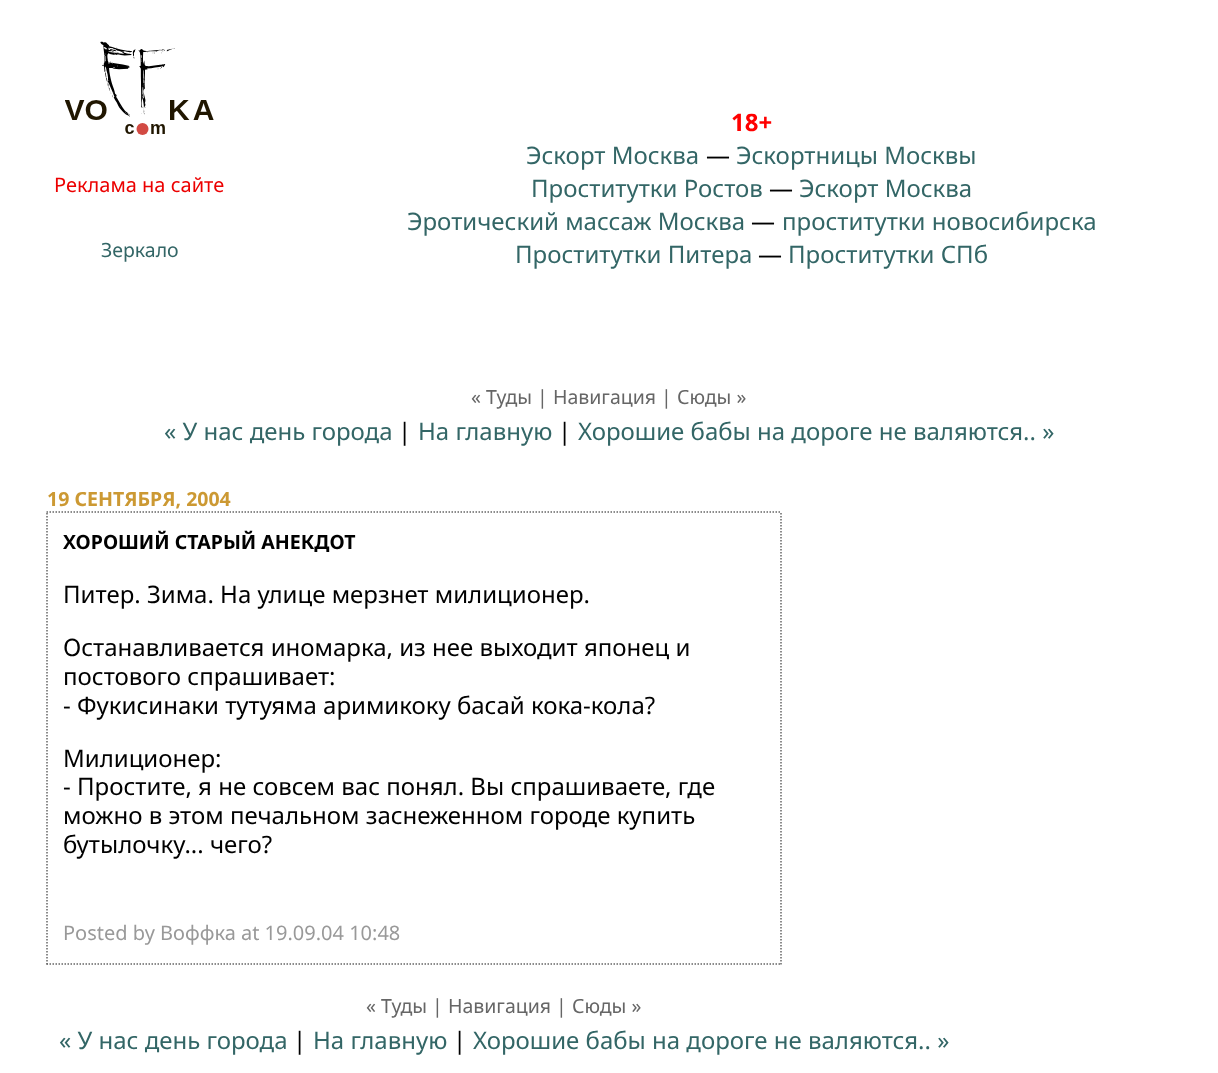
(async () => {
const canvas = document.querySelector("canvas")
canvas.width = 1218
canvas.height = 1073
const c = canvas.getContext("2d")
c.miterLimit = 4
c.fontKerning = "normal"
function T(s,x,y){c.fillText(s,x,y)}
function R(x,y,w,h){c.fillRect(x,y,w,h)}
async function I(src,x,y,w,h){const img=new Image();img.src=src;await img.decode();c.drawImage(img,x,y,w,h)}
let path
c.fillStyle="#fff"
R(0,0,1218,1073)
await I("1.png",65,41,149,94)
c.font="20px Noto Sans"
c.fillStyle="#ec0000"
T("Реклама на сайте",54,192)
c.font="19.5px Noto Sans"
c.fillStyle="#366"
T("Зеркало",101,257)
c.font="bold 24px Noto Sans"
c.fillStyle="#f00"
T("18+",731,131)
c.font="24px Noto Sans"
c.fillStyle="#366"
T("Эскорт Москва",526,164)
c.fillStyle="#000"
T("—",706,164)
c.fillStyle="#366"
T("Эскортницы Москвы",736,164)
T("Проститутки Ростов",531,197)
c.fillStyle="#000"
T("—",769,197)
c.fillStyle="#366"
T("Эскорт Москва",799,197)
T("Эротический массаж Москва",407,230)
c.fillStyle="#000"
T("—",751,230)
c.fillStyle="#366"
T("проститутки новосибирска",782,230)
T("Проститутки Питера",515,263)
c.fillStyle="#000"
T("—",758,263)
c.fillStyle="#366"
T("Проститутки СПб",788,263)
c.font="19.5px Noto Sans"
c.fillStyle="#666"
T("« Туды | Навигация | Сюды »",471,404)
c.font="24px Noto Sans"
c.fillStyle="#366"
T("« У нас день города",164,440)
c.fillStyle="#000"
T("|",398,440)
c.fillStyle="#366"
T("На главную",418,440)
c.fillStyle="#000"
T("|",558,440)
c.fillStyle="#366"
T("Хорошие бабы на дороге не валяются.. »",578,440)
path = new Path2D("M46.5 512h735")
c.strokeStyle="#666"
c.lineWidth=1.5
c.setLineDash([1.5,1.5])
c.stroke(path)
c.font="bold 19.5px Noto Sans"
c.fillStyle="#c93"
T("19 СЕНТЯБРЯ, 2004",47,506)
path = new Path2D("M781 513v451.5")
c.stroke(path)
path = new Path2D("M46.5 964h735")
c.stroke(path)
path = new Path2D("M47 513v451.5")
c.stroke(path)
c.fillStyle="#000"
T("ХОРОШИЙ СТАРЫЙ АНЕКДОТ",63,549)
c.font="24px Noto Sans"
T("Питер. Зима. На улице мерзнет милиционер.",63,603)
T("Останавливается иномарка, из нее выходит японец и",63,656)
T("постового спрашивает:",63,685)
T("- Фукисинаки тутуяма аримикоку басай кока-кола?",63,714)
T("Милиционер:",63,767)
T("- Простите, я не совсем вас понял. Вы спрашиваете, где",63,795)
T("можно в этом печальном заснеженном городе купить",63,824)
T("бутылочку... чего?",63,853)
c.font="20px Noto Sans"
c.fillStyle="#999"
T("Posted by Воффка at 19.09.04 10:48",63,940)
c.font="19.5px Noto Sans"
c.fillStyle="#666"
T("« Туды | Навигация | Сюды »",366,1013)
c.font="24px Noto Sans"
c.fillStyle="#366"
T("« У нас день города",59,1049)
c.fillStyle="#000"
T("|",293,1049)
c.fillStyle="#366"
T("На главную",313,1049)
c.fillStyle="#000"
T("|",453,1049)
c.fillStyle="#366"
T("Хорошие бабы на дороге не валяются.. »",473,1049)
})()
